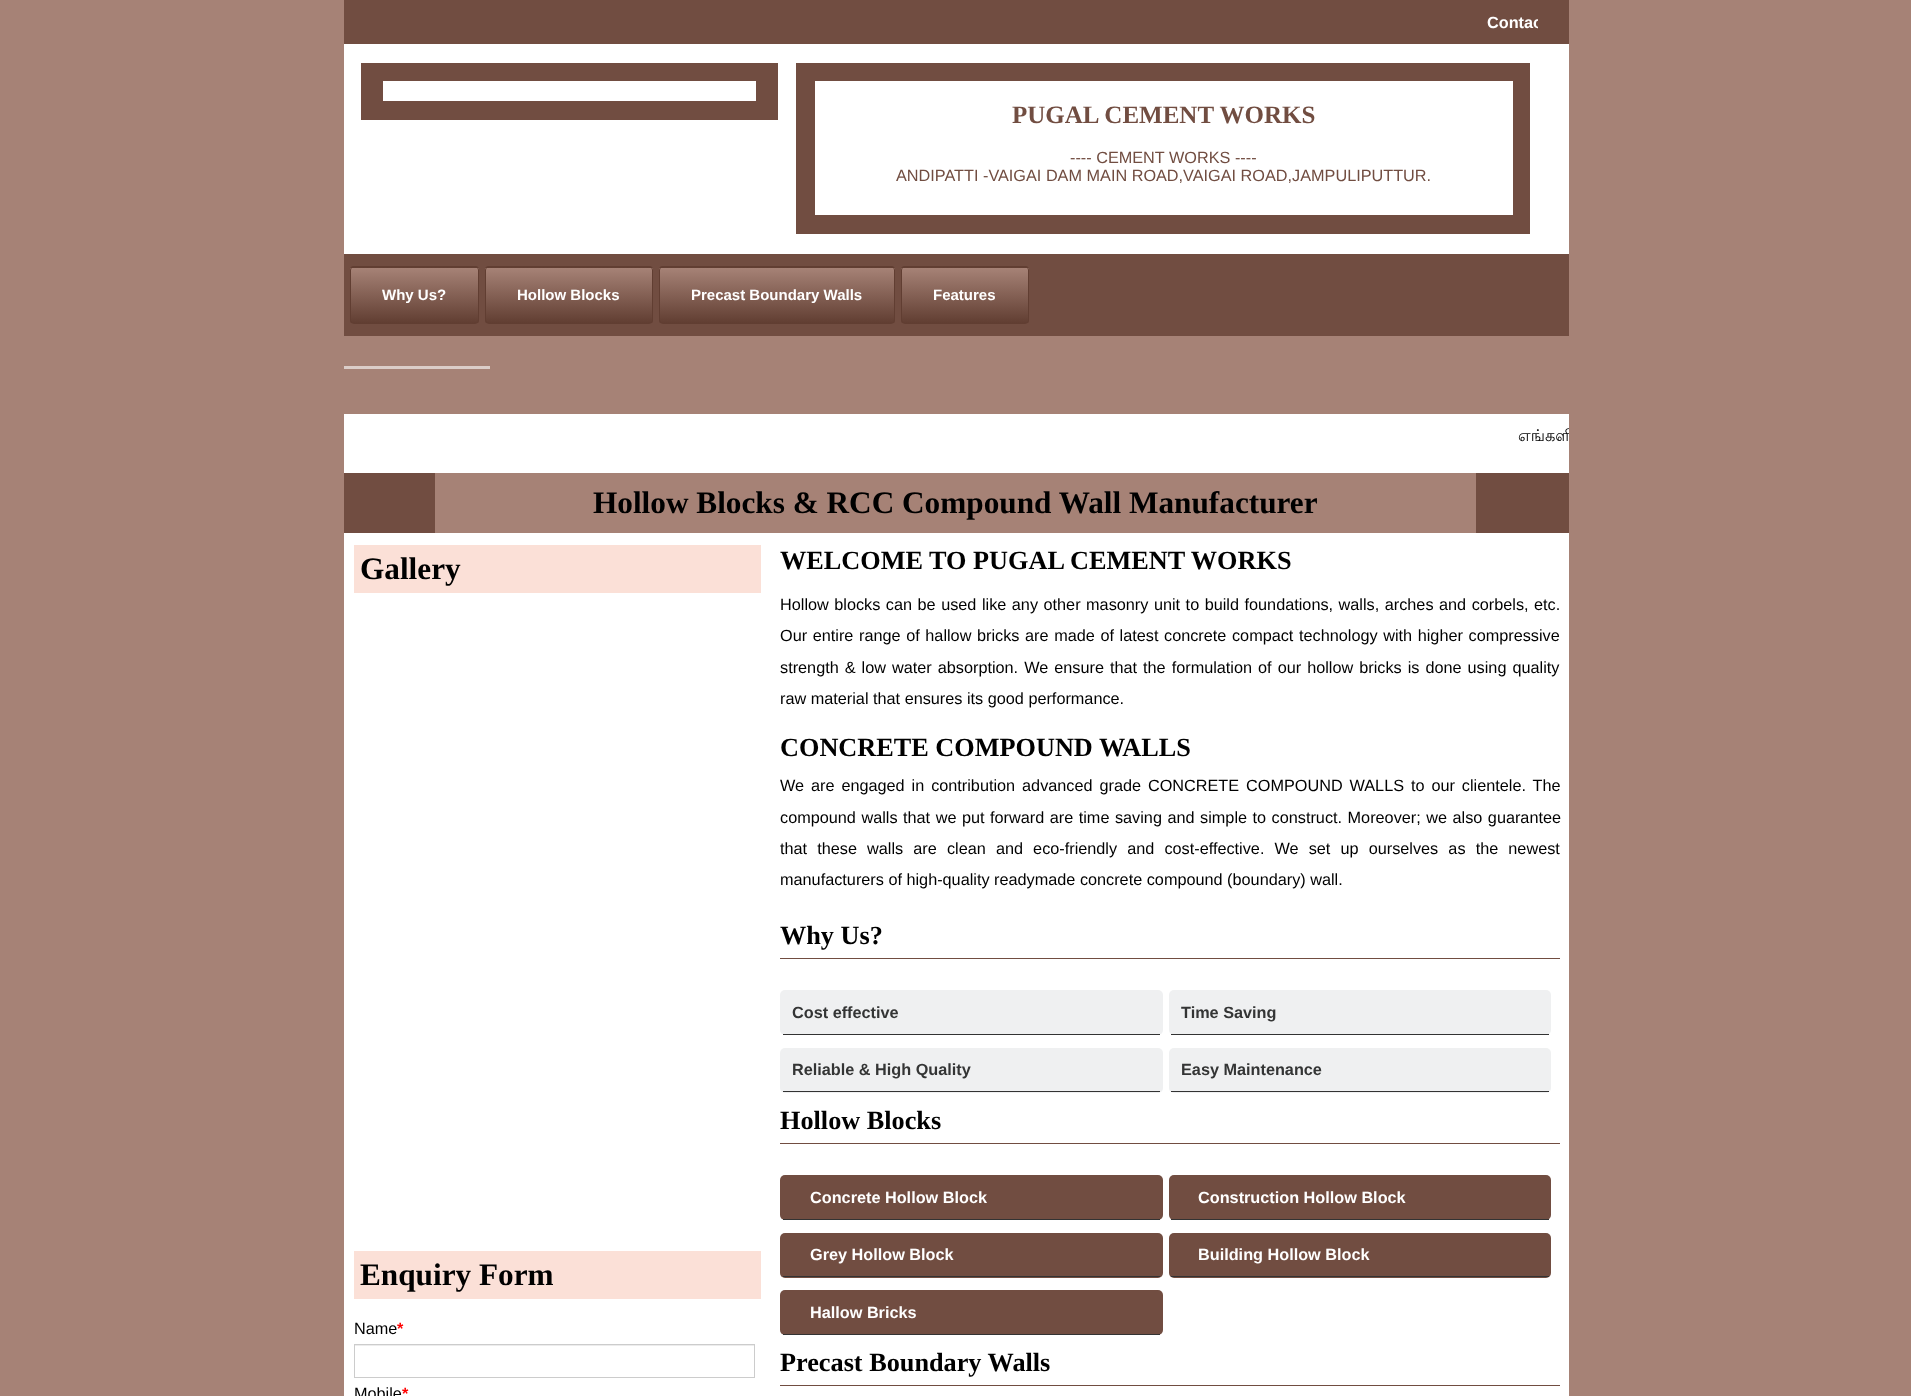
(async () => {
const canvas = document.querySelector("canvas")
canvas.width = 1911
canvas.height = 1396
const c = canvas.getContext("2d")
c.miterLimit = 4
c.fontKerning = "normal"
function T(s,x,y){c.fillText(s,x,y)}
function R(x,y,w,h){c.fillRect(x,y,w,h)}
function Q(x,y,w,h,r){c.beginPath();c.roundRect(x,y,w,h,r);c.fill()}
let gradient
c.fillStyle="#a68276"
R(0,0,1911,1396)
c.fillStyle="#714d41"
R(344,0,1225,44)
c.save()
c.beginPath()
c.rect(374,13,1164,18)
c.clip()
c.font="bold 16.25px Liberation Sans"
c.fillStyle="#fff"
T("Contac",1487,28)
c.restore()
c.fillStyle="#fff"
R(344,44,1225,210)
c.fillStyle="#714d41"
R(361,63,417,57)
c.fillStyle="#fff"
R(383,81,373,20)
c.fillStyle="#714d41"
R(796,63,734,171)
c.fillStyle="#fff"
R(815,81,698,134)
c.font="bold 25px Liberation Serif"
c.fillStyle="#714d41"
T("PUGAL CEMENT WORKS",1012,123)
c.font="16.25px Liberation Sans"
T("---- CEMENT WORKS ----",1070,163)
T("ANDIPATTI -VAIGAI DAM MAIN ROAD,VAIGAI ROAD,JAMPULIPUTTUR.",896,181)
R(344,254,1225,82)
c.save()
c.beginPath()
c.roundRect(350,266,129,58,4)
c.clip()
gradient = c.createLinearGradient(414,213,414,268)
gradient.addColorStop(0,"#a68276")
gradient.addColorStop(1,"#613e32")
c.fillStyle = gradient
R(350,266,129,2)
gradient = c.createLinearGradient(414,268,414,323)
gradient.addColorStop(0,"#a68276")
gradient.addColorStop(1,"#613e32")
c.fillStyle = gradient
R(350,268,129,55)
c.restore()
c.beginPath()
c.roundRect(350.5,266.5,128,57,3.5)
c.strokeStyle="#613e32"
c.stroke()
c.font="bold 15px Liberation Sans"
c.fillStyle="#fff"
T("Why Us?",382,300)
c.save()
c.beginPath()
c.roundRect(485,266,168,58,4)
c.clip()
gradient = c.createLinearGradient(569,213,569,268)
gradient.addColorStop(0,"#a68276")
gradient.addColorStop(1,"#613e32")
c.fillStyle = gradient
R(485,266,168,2)
gradient = c.createLinearGradient(569,268,569,323)
gradient.addColorStop(0,"#a68276")
gradient.addColorStop(1,"#613e32")
c.fillStyle = gradient
R(485,268,168,55)
c.restore()
c.beginPath()
c.roundRect(485.5,266.5,167,57,3.5)
c.stroke()
T("Hollow Blocks",517,300)
c.save()
c.beginPath()
c.roundRect(659,266,236,58,4)
c.clip()
gradient = c.createLinearGradient(777,213,777,268)
gradient.addColorStop(0,"#a68276")
gradient.addColorStop(1,"#613e32")
c.fillStyle = gradient
R(659,266,236,2)
gradient = c.createLinearGradient(777,268,777,323)
gradient.addColorStop(0,"#a68276")
gradient.addColorStop(1,"#613e32")
c.fillStyle = gradient
R(659,268,236,55)
c.restore()
c.beginPath()
c.roundRect(659.5,266.5,235,57,3.5)
c.stroke()
T("Precast Boundary Walls",691,300)
c.save()
c.beginPath()
c.roundRect(901,266,128,58,4)
c.clip()
gradient = c.createLinearGradient(965,213,965,268)
gradient.addColorStop(0,"#a68276")
gradient.addColorStop(1,"#613e32")
c.fillStyle = gradient
R(901,266,128,2)
gradient = c.createLinearGradient(965,268,965,323)
gradient.addColorStop(0,"#a68276")
gradient.addColorStop(1,"#613e32")
c.fillStyle = gradient
R(901,268,128,55)
c.restore()
c.beginPath()
c.roundRect(901.5,266.5,127,57,3.5)
c.stroke()
T("Features",933,300)
c.fillStyle="#dbcdc8"
R(344,366,146,3)
c.fillStyle="#fff"
R(344,414,1225,982)
c.save()
c.beginPath()
c.rect(344,426,1225,22)
c.clip()
c.font="16.25px Lohit Tamil"
c.fillStyle="#000"
T("எங்களி",1518,441)
c.restore()
c.fillStyle="#714d41"
R(344,473,1225,60)
c.fillStyle="#a68276"
R(435,473,1041,60)
c.font="bold 31.25px Liberation Serif"
c.fillStyle="#000"
T("Hollow Blocks & RCC Compound Wall Manufacturer",593,513)
c.fillStyle="#fbe0d7"
R(354,545,407,48)
c.fillStyle="#000"
T("Gallery",360,579)
c.fillStyle="#fbe0d7"
R(354,1251,407,48)
c.fillStyle="#000"
T("Enquiry Form",360,1285)
c.font="16.25px Liberation Sans"
T("Name",354,1334)
c.font="bold 16.25px Liberation Sans"
c.fillStyle="#f00"
T("*",397,1334)
c.fillStyle="#ececec"
R(355,1345,399,1)
c.strokeStyle="#ccc"
c.strokeRect(354.5,1344.5,400,33)
c.font="16.25px Liberation Sans"
c.fillStyle="#000"
T("Mobile",354,1399)
c.font="bold 16.25px Liberation Sans"
c.fillStyle="#f00"
T("*",402,1399)
c.font="bold 26.25px Liberation Serif"
c.fillStyle="#000"
T("WELCOME TO PUGAL CEMENT WORKS",780,569)
c.wordSpacing="1px"
c.font="16.25px Liberation Sans"
T("Hollow blocks can be used like any other masonry unit to build foundations, walls, arches and corbels, etc.",780,610)
c.wordSpacing="1.1px"
T("Our entire range of hallow bricks are made of latest concrete compact technology with higher compressive",780,641)
c.wordSpacing="1.5px"
T("strength & low water absorption. We ensure that the formulation of our hollow bricks is done using quality",780,673)
c.wordSpacing="0px"
T("raw material that ensures its good performance.",780,704)
c.font="bold 26.25px Liberation Serif"
T("CONCRETE COMPOUND WALLS",780,756)
c.wordSpacing="2.4px"
c.font="16.25px Liberation Sans"
T("We are engaged in contribution advanced grade CONCRETE COMPOUND WALLS to our clientele. The",780,791)
c.wordSpacing="1px"
T("compound walls that we put forward are time saving and simple to construct. Moreover; we also guarantee",780,823)
c.wordSpacing="5.6px"
T("that these walls are clean and eco-friendly and cost-effective. We set up ourselves as the newest",780,854)
c.wordSpacing="0px"
T("manufacturers of high-quality readymade concrete compound (boundary) wall.",780,885)
c.fillStyle="#714d41"
R(780,958,780,1)
c.font="bold 26.25px Liberation Serif"
c.fillStyle="#000"
T("Why Us?",780,944)
c.fillStyle="#eff0f1"
Q(780,990,383,45,5)
c.fillStyle="#333"
R(783,1034,377,1)
c.font="bold 16.25px Liberation Sans"
c.fillStyle="#343535"
T("Cost effective",792,1018)
c.fillStyle="#eff0f1"
Q(1169,990,382,45,5)
c.fillStyle="#333"
R(1171,1034,378,1)
c.fillStyle="#343535"
T("Time Saving",1181,1018)
c.fillStyle="#eff0f1"
Q(780,1048,383,45,5)
c.fillStyle="#333"
R(783,1091,377,1)
c.fillStyle="#343535"
T("Reliable & High Quality",792,1075)
c.fillStyle="#eff0f1"
Q(1169,1048,382,45,5)
c.fillStyle="#333"
R(1171,1091,378,1)
c.fillStyle="#343535"
T("Easy Maintenance",1181,1075)
c.fillStyle="#714d41"
R(780,1143,780,1)
c.font="bold 26.25px Liberation Serif"
c.fillStyle="#000"
T("Hollow Blocks",780,1129)
c.fillStyle="#714d41"
Q(780,1175,383,45,5)
c.fillStyle="#333"
R(783,1219,377,1)
c.font="bold 16.25px Liberation Sans"
c.fillStyle="#fff"
T("Concrete Hollow Block",810,1203)
c.fillStyle="#714d41"
Q(1169,1175,382,45,5)
c.fillStyle="#333"
R(1171,1219,378,1)
c.fillStyle="#fff"
T("Construction Hollow Block",1198,1203)
c.fillStyle="#714d41"
Q(780,1233,383,45,5)
c.fillStyle="#333"
R(783,1276,377,1)
c.fillStyle="#fff"
T("Grey Hollow Block",810,1260)
c.fillStyle="#714d41"
Q(1169,1233,382,45,5)
c.fillStyle="#333"
R(1171,1276,378,1)
c.fillStyle="#fff"
T("Building Hollow Block",1198,1260)
c.fillStyle="#714d41"
Q(780,1290,383,45,5)
c.fillStyle="#333"
R(783,1334,377,1)
c.fillStyle="#fff"
T("Hallow Bricks",810,1318)
c.fillStyle="#714d41"
R(780,1385,780,1)
c.font="bold 26.25px Liberation Serif"
c.fillStyle="#000"
T("Precast Boundary Walls",780,1371)
})()
